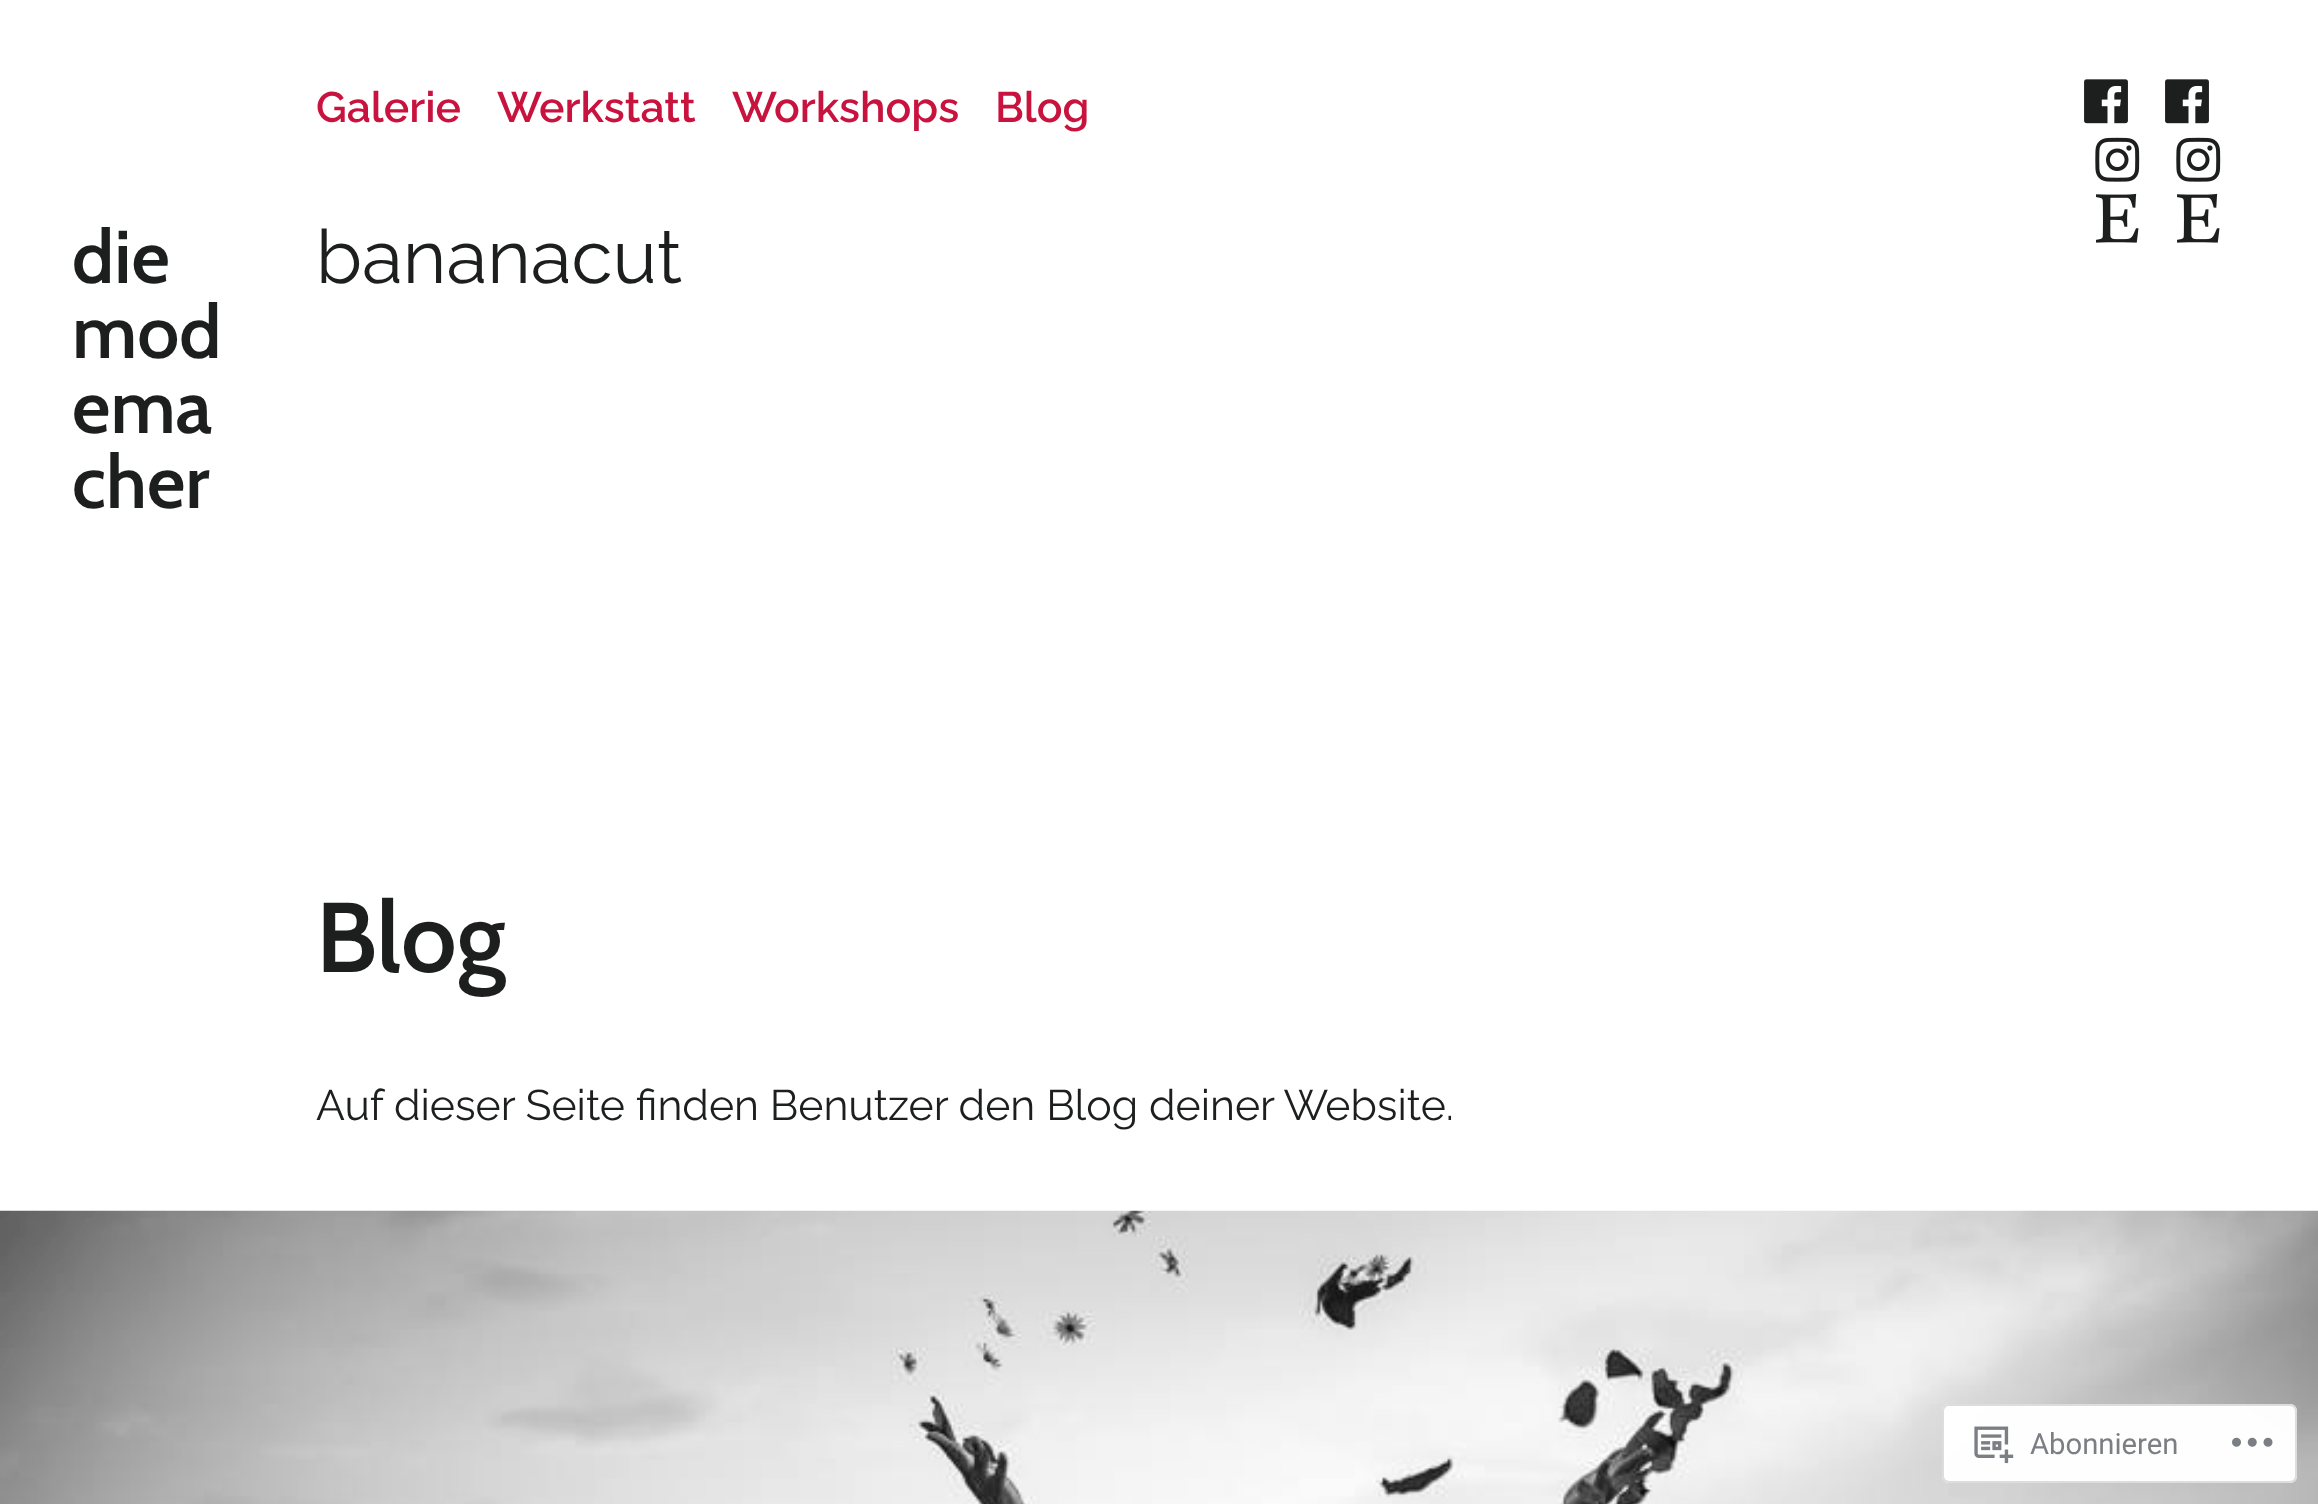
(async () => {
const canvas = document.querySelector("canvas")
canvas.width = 2318
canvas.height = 1504
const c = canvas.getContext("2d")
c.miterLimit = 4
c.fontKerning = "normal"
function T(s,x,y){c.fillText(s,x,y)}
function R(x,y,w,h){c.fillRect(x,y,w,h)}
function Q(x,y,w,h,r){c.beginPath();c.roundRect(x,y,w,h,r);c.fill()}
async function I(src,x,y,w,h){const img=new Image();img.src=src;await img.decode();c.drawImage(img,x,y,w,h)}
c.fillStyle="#fff"
R(0,0,2318,1504)
c.font="600 42.75px Raleway"
c.fillStyle="#c8133e"
T("Galerie",316,122)
T("Werkstatt",497,122)
T("Workshops",732,122)
T("Blog",995,122)
await I("1.png",2084,79,44,45)
await I("1.png",2165,79,44,45)
await I("2.png",2095,137,45,45)
await I("2.png",2176,137,45,45)
await I("3.png",2096,193,43,50)
await I("3.png",2177,193,43,50)
c.font="600 74.75px Cabin"
c.fillStyle="#1d1e1e"
T("die",72,283)
T("mod",72,358)
T("ema",72,433)
T("cher",72,508)
c.font="74.75px Raleway"
T("bananacut",316,283)
c.font="600 99px Cabin"
T("Blog",316,972)
c.font="42.75px Raleway"
T("Auf dieser Seite finden Benutzer den Blog deiner Website.",316,1120)
await I("4.png",0,1210,2318,294)
c.fillStyle="#fffffffa"
Q(1942,1404,355,79,7)
c.beginPath()
c.roundRect(1943,1405,353,77,6)
c.strokeStyle="#dcdcdefa"
c.lineWidth=2
c.stroke()
await I("5.png",1974,1426,40,38)
c.font="29.25px Roboto"
c.fillStyle="#7b7f84"
T("Abonnieren",2030,1454)
await I("6.png",2232,1437,41,10)
})()
